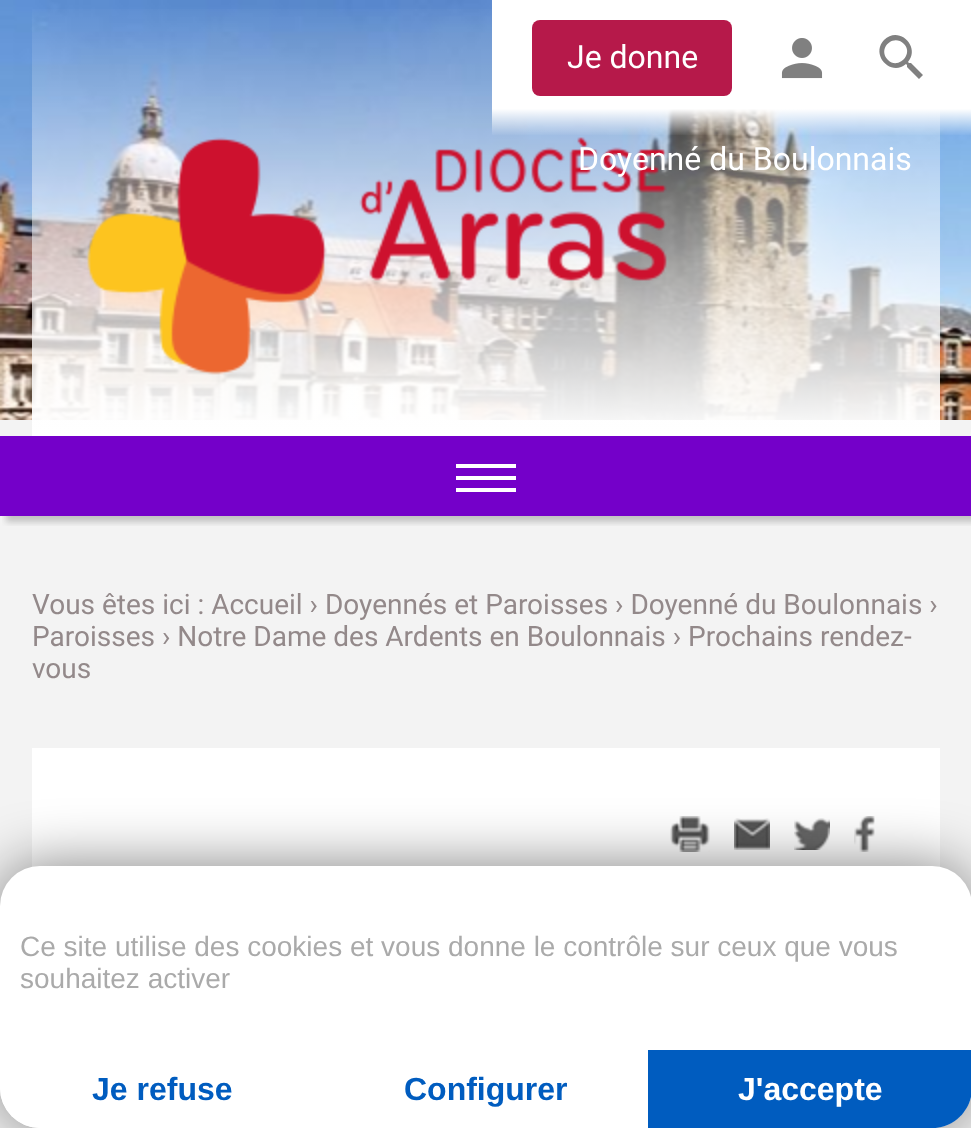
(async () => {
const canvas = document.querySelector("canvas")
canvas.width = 971
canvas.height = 1128
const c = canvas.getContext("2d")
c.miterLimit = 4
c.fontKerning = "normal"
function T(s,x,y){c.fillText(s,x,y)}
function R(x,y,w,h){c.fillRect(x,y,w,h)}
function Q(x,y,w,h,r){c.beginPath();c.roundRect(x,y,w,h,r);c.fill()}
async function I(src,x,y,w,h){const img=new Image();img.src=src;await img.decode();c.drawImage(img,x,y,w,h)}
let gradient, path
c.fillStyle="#f3f3f3"
R(0,0,971,1128)
await I("1.png",0,0,971,420)
gradient = c.createLinearGradient(486,0,486,436)
gradient.addColorStop(0,"#ffffff00")
gradient.addColorStop(1,"#fff")
c.fillStyle = gradient
R(32,9,908,427)
await I("2.png",87,137,580,238)
gradient = c.createLinearGradient(732,0,732,136)
gradient.addColorStop(.8,"#fff")
gradient.addColorStop(1,"#ffffff00")
c.fillStyle = gradient
R(492,0,479,135)
c.fillStyle="#b6194a"
Q(532,20,200,76,8)
c.font="32px Roboto"
c.fillStyle="#fff"
T("Je donne",567,68)
await I("3.png",781,38,42,41)
c.fillStyle="#808080"
path = new Path2D("M888 60c10 10 26-6 16-16c-11-11-27 5-16 16zm23 3l12 12l-4 4l-12-12v-2l-1-1c-15 13-36-9-22-24c15-15 37 7 24 22l1 1z")
c.fill(path)
c.fillStyle="#fff"
T("Doyenné du Boulonnais",578,170)
c.fillStyle="#7400c9"
R(0,436,971,80)
c.save()
c.beginPath()
c.rect(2,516,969,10)
c.clip()
c.fillStyle="#00000033"
c.filter="blur(3px)"
c.beginPath()
c.rect(6,442,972,80)
c.fill()
c.filter="none"
c.restore()
c.fillStyle="#fff"
R(456,476,60,4)
R(456,464,60,4)
R(456,488,60,4)
c.font="28px Roboto"
c.fillStyle="#93898a"
T("Vous êtes ici : Accueil › Doyennés et Paroisses › Doyenné du Boulonnais ›",32,614)
T("Paroisses › Notre Dame des Ardents en Boulonnais › Prochains rendez-",32,646)
T("vous",32,678)
c.fillStyle="#fff"
R(32,748,908,380)
await I("4.png",670,816,40,36)
await I("5.png",734,818,36,32)
await I("6.png",794,818,36,32)
await I("7.png",854,816,21,36)
c.fillStyle="#00000080"
c.filter="blur(30px)"
c.beginPath()
c.roundRect(0,866,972,262,40)
c.fill()
c.filter="none"
c.fillStyle="#fff"
Q(0,866,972,262,40)
c.font="28px Liberation Sans"
c.fillStyle="#aaa"
T("Ce site utilise des cookies et vous donne le contrôle sur ceux que vous",20,956)
T("souhaitez activer",20,988)
c.fillStyle="#fff"
c.beginPath()
c.roundRect(0,1050,324,78,[0,0,0,40])
c.fill()
c.font="bold 32px Liberation Sans"
c.fillStyle="#005cbf"
T("Je refuse",92,1100)
T("Configurer",404,1100)
path = new Path2D("M648 1050h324v38c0 22-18 40-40 40h-284z")
c.fill(path)
c.fillStyle="#fff"
T("J'accepte",738,1100)
})()
